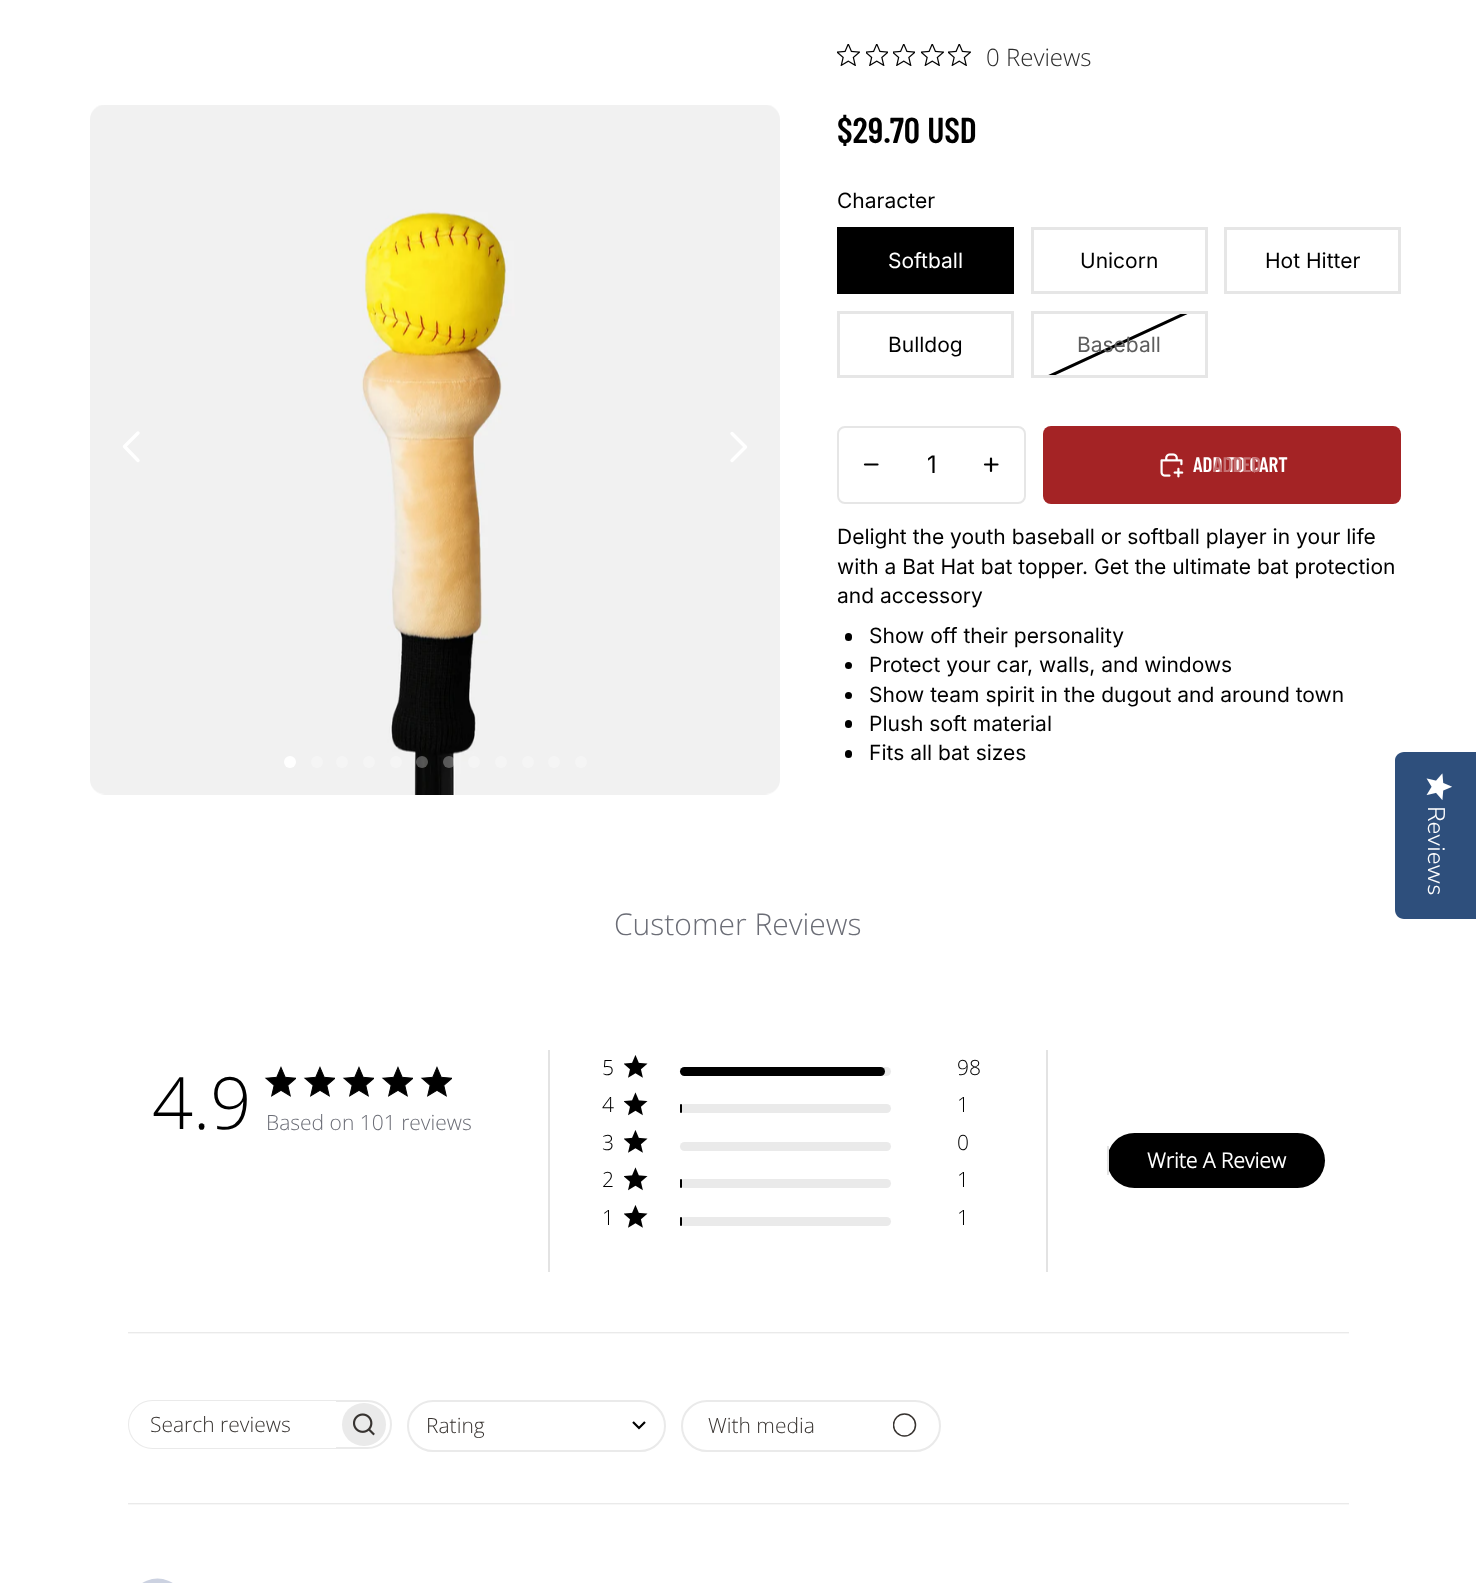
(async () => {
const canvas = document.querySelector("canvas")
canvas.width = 1476
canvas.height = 1583
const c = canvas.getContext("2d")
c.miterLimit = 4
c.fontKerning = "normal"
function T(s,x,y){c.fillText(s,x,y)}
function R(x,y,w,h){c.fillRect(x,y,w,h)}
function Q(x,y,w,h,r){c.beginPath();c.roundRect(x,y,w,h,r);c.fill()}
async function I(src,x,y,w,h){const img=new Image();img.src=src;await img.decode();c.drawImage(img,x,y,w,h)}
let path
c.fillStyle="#fff"
R(0,0,1476,1583)
await I("1.png",90,105,690,690)
path = new Path2D("M138 433l-13.5 13.5l13.5 14")
c.strokeStyle="#fff"
c.lineWidth=3.4
c.lineCap="round"
c.lineJoin="round"
c.stroke(path)
path = new Path2D("M732 433.5l13.5 13.5l-13.5 13.5")
c.stroke(path)
c.beginPath()
c.arc(290,762,6,0,7)
c.fill()
c.fillStyle="#f5f5f5"
c.beginPath()
c.arc(317,762,6,0,7)
c.fill()
c.beginPath()
c.arc(342,762,6,0,7)
c.fill()
c.beginPath()
c.arc(369,762,6,0,7)
c.fill()
c.beginPath()
c.arc(396,762,6,0,7)
c.fill()
c.fillStyle="#ffffff4d"
c.beginPath()
c.arc(422,762,6,0,7)
c.fill()
c.beginPath()
c.arc(449,762,6,0,7)
c.fill()
c.fillStyle="#f5f5f5"
c.beginPath()
c.arc(474,762,6,0,7)
c.fill()
c.beginPath()
c.arc(501,762,6,0,7)
c.fill()
c.beginPath()
c.arc(528,762,6,0,7)
c.fill()
c.beginPath()
c.arc(554,762,6,0,7)
c.fill()
c.beginPath()
c.arc(581,762,6,0,7)
c.fill()
await I("2.png",837,44,23,22)
await I("3.png",866,44,22,22)
await I("3.png",893,44,22,22)
await I("2.png",921,44,23,22)
await I("2.png",948,44,23,22)
c.font="300 24px Open Sans"
c.fillStyle="#2c2c2c"
T("0 Reviews",986,66)
c.font="600 36px Barlow Condensed"
c.fillStyle="#000"
T("$29.70 USD",837,143)
c.font="21px Inter"
T("Character",837,208)
c.strokeStyle="#000"
c.lineWidth=3
c.lineJoin="miter"
c.strokeRect(838.5,228.5,174,64)
R(840,230,171,61)
c.fillStyle="#fff"
T("Softball",888,268)
c.strokeStyle="#e6e6e6"
c.strokeRect(1032.5,228.5,174,64)
c.fillStyle="#000"
T("Unicorn",1080,268)
c.strokeRect(1225.5,228.5,174,64)
T("Hot Hitter",1265,268)
c.strokeRect(838.5,312.5,174,64)
T("Bulldog",888,352)
c.save()
c.beginPath()
c.rect(1034,314,171,61)
c.clip()
path = new Path2D("M1204.5 304.5l-171 79")
c.lineCap="butt"
c.stroke(path)
path = new Path2D("M1204.5 304.5l-171 79")
c.strokeStyle="#000"
c.stroke(path)
c.restore()
c.strokeRect(1032.5,312.5,174,64)
c.fillStyle="#5d5d5d"
T("Baseball",1077,352)
c.beginPath()
c.roundRect(838,427,187,76,7)
c.lineWidth=2
c.stroke()
path = new Path2D("M865 464.5h12.5")
c.strokeStyle="#000"
c.lineWidth=2.2
c.stroke(path)
c.font="24px 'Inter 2'"
c.fillStyle="#000"
T("1",927,473)
path = new Path2D("M985 464.5h12.5m-6.5-6v12.5")
c.stroke(path)
c.fillStyle="#a42325"
Q(1043,426,358,78,8)
await I("4.png",1160,453,24,25)
c.font="600 21px Barlow Condensed"
c.fillStyle="#fff"
T("ADD TO CART",1193,472)
c.fillStyle="#c47072"
T("ADDED",1213,472)
c.font="21px Inter"
c.fillStyle="#000"
T("Delight the youth baseball or softball player in your life",837,544)
T("with a Bat Hat bat topper. Get the ultimate bat protection",837,574)
T("and accessory",837,603)
Q(845,633,7,8,3.5)
T("Show off their personality",869,643)
c.beginPath()
c.arc(848.5,665.5,3.5,0,7)
c.fill()
T("Protect your car, walls, and windows",869,672)
c.beginPath()
c.arc(848.5,695.5,3.5,0,7)
c.fill()
T("Show team spirit in the dugout and around town",869,702)
Q(845,720,7,8,3.5)
T("Plush soft material",869,731)
Q(845,750,7,8,3.5)
T("Fits all bat sizes",869,760)
c.font="300 30px Open Sans"
c.fillStyle="#6b6d76"
T("Customer Reviews",614,935)
c.font="300 72px Open Sans"
c.fillStyle="#000"
T("4.9",152,1129)
await I("5.png",264,1066,32,31)
await I("5.png",303,1066,32,31)
await I("5.png",342,1066,32,31)
await I("5.png",381,1066,32,31)
await I("5.png",420,1066,32,31)
c.font="300 21px Open Sans"
c.fillStyle="#6b6d76"
T("Based on 101 reviews",266,1130)
c.fillStyle="#e3e3e3"
R(548,1050,2,222)
R(1046,1050,2,222)
c.fillStyle="#000"
T("5",602,1075)
await I("6.png",624,1055,24,23)
c.fillStyle="#eaeaea"
Q(680,1067,211,9,4.5)
c.fillStyle="#000"
Q(680,1067,205,9,4.5)
T("98",957,1075)
T("4",602,1112)
await I("7.png",624,1092,24,24)
c.fillStyle="#eaeaea"
Q(680,1104,211,9,4.5)
c.fillStyle="#000"
Q(680,1104,2,9,1)
T("1",957,1112)
T("3",602,1150)
await I("6.png",624,1130,24,23)
c.fillStyle="#eaeaea"
Q(680,1142,211,9,4.5)
c.fillStyle="#000"
T("0",957,1150)
T("2",602,1187)
await I("7.png",624,1167,24,24)
c.fillStyle="#eaeaea"
Q(680,1179,211,9,4.5)
c.fillStyle="#000"
Q(680,1179,2,9,1)
T("1",957,1187)
T("1",602,1225)
await I("6.png",624,1205,24,23)
c.fillStyle="#eaeaea"
Q(680,1217,211,9,4.5)
c.fillStyle="#000"
Q(680,1217,2,9,1)
T("1",957,1225)
Q(1107,1133,218,55,27.5)
c.fillStyle="#e3e3e3"
R(1107,1146,2,29)
c.font="bold 21px Open Sans"
c.fillStyle="#fff"
T("Write A Review",1147,1168)
await I("8.png",128,1332,1221,2)
c.beginPath()
c.roundRect(129,1401,262,47,23.5)
c.strokeStyle="#eaeaea"
c.lineWidth=2
c.stroke()
c.beginPath()
c.roundRect(129,1401,207,47,[23.5,0,0,23.5])
c.fill()
c.font="300 21px Open Sans"
c.fillStyle="#373330"
T("Search reviews",150,1432)
c.fillStyle="#eaeaea"
Q(342,1403,44,43,21.5)
await I("9.png",353,1413,22,23)
c.beginPath()
c.roundRect(408,1401,257,50,25)
c.stroke()
path = new Path2D("M633 1422l6 6l6-6")
c.strokeStyle="#000"
c.lineWidth=2.2
c.lineCap="butt"
c.stroke(path)
c.fillStyle="#373330"
T("Rating",426,1433)
c.beginPath()
c.roundRect(682,1401,258,50,25)
c.strokeStyle="#eaeaea"
c.lineWidth=2
c.stroke()
T("With media",708,1433)
c.save()
c.beginPath()
c.rect(893,1413,24,24)
c.clip()
c.beginPath()
c.arc(904.5,1425,11,0,7)
c.strokeStyle="#373330"
c.lineWidth=1.5
c.stroke()
c.restore()
await I("8.png",128,1503,1221,2)
c.fillStyle="#ccd2e1"
c.beginPath()
c.arc(157.5,1606.5,28,0,7)
c.fill()
c.fillStyle="#2e4f7c"
path = new Path2D("M1476 752v167h-72c-5 0-9-4-9-9v-150c0-4 4-8 9-8z")
c.fill(path)
await I("10.png",1426,773,26,27)
c.font="300 24px Nunito Sans"
c.fillStyle="#fff"
c.save()
c.translate(1428,806)
c.rotate(90 * Math.PI / 180)
c.fillText("Reviews",0,0)
c.restore()
})()
